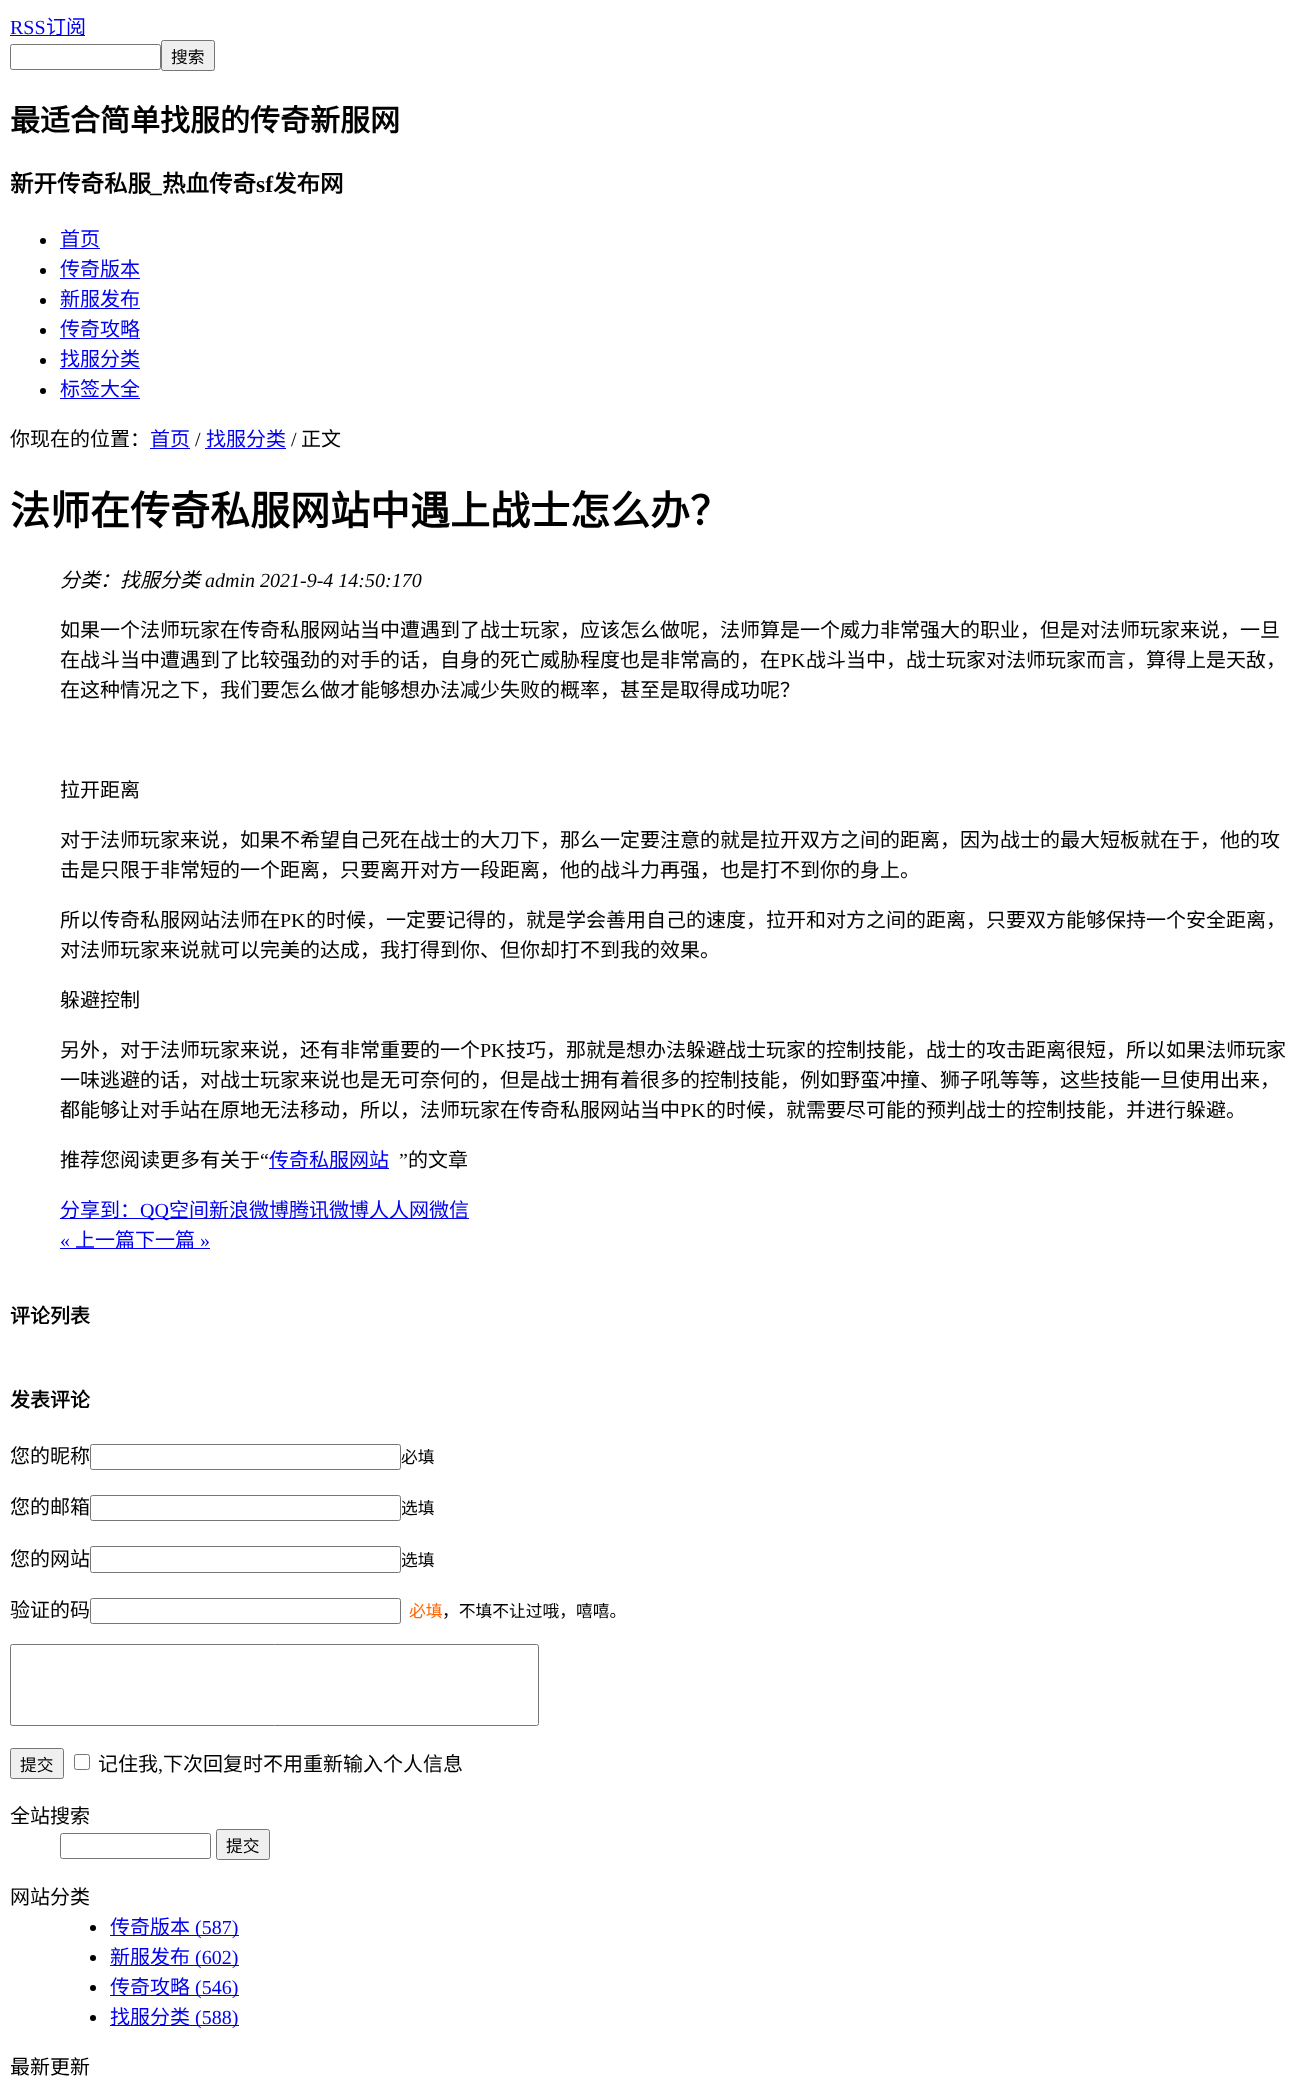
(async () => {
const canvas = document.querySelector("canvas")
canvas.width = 1304
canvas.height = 2094
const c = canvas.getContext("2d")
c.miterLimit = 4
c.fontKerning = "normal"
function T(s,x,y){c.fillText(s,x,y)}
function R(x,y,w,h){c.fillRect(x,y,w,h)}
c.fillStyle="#fff"
R(0,0,1304,2094)
c.font="20px Liberation Serif"
c.fillStyle="#00e"
T("RSS",10,34)
R(10,35,75,1)
c.font="20px Noto Sans CJK SC"
T("订阅",46,34)
c.beginPath()
c.roundRect(10.5,44.5,150,25,2)
c.strokeStyle="#767676"
c.stroke()
c.fillStyle="#efefef"
c.beginPath()
c.roundRect(161.5,40.5,53,30,2)
c.fill()
c.stroke()
c.font="16.75px Noto Sans CJK SC"
c.fillStyle="#000"
T("搜索",171,63)
c.font="bold 30px Noto Sans CJK SC"
T("最适合简单找服的传奇新服网",10,131)
c.font="bold 23.5px Noto Sans CJK SC"
T("新开传奇私服",10,192)
T("热血传奇",162,192)
c.font="bold 23.5px Liberation Serif"
T("sf",256,192)
c.font="bold 23.5px Noto Sans CJK SC"
T("发布网",273,192)
c.font="bold 23.5px Liberation Serif"
T("_",150,192)
c.beginPath()
c.arc(43,241,3,0,7)
c.fill()
c.font="20px Noto Sans CJK SC"
c.fillStyle="#00e"
T("首页",60,246)
R(60,248,40,1)
c.fillStyle="#000"
c.beginPath()
c.arc(43,271,3,0,7)
c.fill()
c.fillStyle="#00e"
T("传奇版本",60,276)
R(60,278,80,1)
c.fillStyle="#000"
c.beginPath()
c.arc(43,301,3,0,7)
c.fill()
c.fillStyle="#00e"
T("新服发布",60,306)
R(60,308,80,1)
c.fillStyle="#000"
c.beginPath()
c.arc(43,331,3,0,7)
c.fill()
c.fillStyle="#00e"
T("传奇攻略",60,336)
R(60,338,80,1)
c.fillStyle="#000"
c.beginPath()
c.arc(43,361,3,0,7)
c.fill()
c.fillStyle="#00e"
T("找服分类",60,366)
R(60,368,80,1)
c.fillStyle="#000"
c.beginPath()
c.arc(43,391,3,0,7)
c.fill()
c.fillStyle="#00e"
T("标签大全",60,396)
R(60,398,80,1)
c.fillStyle="#000"
T("你现在的位置：",10,446)
c.fillStyle="#00e"
T("首页",150,446)
R(150,448,40,1)
c.font="20px Liberation Serif"
c.fillStyle="#000"
T("/",195,446)
c.font="20px Noto Sans CJK SC"
c.fillStyle="#00e"
T("找服分类",206,446)
R(205,448,81,1)
c.font="20px Liberation Serif"
c.fillStyle="#000"
T("/",291,446)
c.font="20px Noto Sans CJK SC"
T("正文",301,446)
c.font="bold 40px Noto Sans CJK SC"
T("法师在传奇私服网站中遇上战士怎么办？",10,525)
c.font="italic 20px Noto Sans CJK SC"
T("分类：找服分类",60,587)
c.font="italic 20px Liberation Serif"
T("admin 2021-9-4 14:50:170",205,587)
c.font="20px Noto Sans CJK SC"
T("如果一个法师玩家在传奇私服网站当中遭遇到了战士玩家，应该怎么做呢，法师算是一个威力非常强大的职业，但是对法师玩家来说，一旦",60,637)
T("在战斗当中遭遇到了比较强劲的对手的话，自身的死亡威胁程度也是非常高的，在",60,667)
c.font="20px Liberation Serif"
T("PK",780,667)
c.font="20px Noto Sans CJK SC"
T("战斗当中，战士玩家对法师玩家而言，算得上是天敌，",806,667)
T("在这种情况之下，我们要怎么做才能够想办法减少失败的概率，甚至是取得成功呢？",60,697)
T("拉开距离",60,797)
T("对于法师玩家来说，如果不希望自己死在战士的大刀下，那么一定要注意的就是拉开双方之间的距离，因为战士的最大短板就在于，他的攻",60,847)
T("击是只限于非常短的一个距离，只要离开对方一段距离，他的战斗力再强，也是打不到你的身上。",60,877)
T("所以传奇私服网站法师在",60,927)
c.font="20px Liberation Serif"
T("PK",280,927)
c.font="20px Noto Sans CJK SC"
T("的时候，一定要记得的，就是学会善用自己的速度，拉开和对方之间的距离，只要双方能够保持一个安全距离，",306,927)
T("对法师玩家来说就可以完美的达成，我打得到你、但你却打不到我的效果。",60,957)
T("躲避控制",60,1007)
T("另外，对于法师玩家来说，还有非常重要的一个",60,1057)
c.font="20px Liberation Serif"
T("PK",480,1057)
c.font="20px Noto Sans CJK SC"
T("技巧，那就是想办法躲避战士玩家的控制技能，战士的攻击距离很短，所以如果法师玩家",506,1057)
T("一味逃避的话，对战士玩家来说也是无可奈何的，但是战士拥有着很多的控制技能，例如野蛮冲撞、狮子吼等等，这些技能一旦使用出来，",60,1087)
T("都能够让对手站在原地无法移动，所以，法师玩家在传奇私服网站当中",60,1117)
c.font="20px Liberation Serif"
T("PK",680,1117)
c.font="20px Noto Sans CJK SC"
T("的时候，就需要尽可能的预判战士的控制技能，并进行躲避。",706,1117)
T("推荐您阅读更多有关于",60,1167)
c.font="20px Liberation Serif"
T("“",260,1167)
c.fillStyle="#00e"
R(269,1168,120,1)
c.font="20px Noto Sans CJK SC"
T("传奇私服网站",269,1167)
c.font="20px Liberation Serif"
c.fillStyle="#000"
T("”",399,1167)
c.font="20px Noto Sans CJK SC"
T("的文章",408,1167)
c.fillStyle="#00e"
R(60,1218,409,1)
T("分享到：",60,1217)
c.font="20px Liberation Serif"
T("QQ",140,1217)
c.font="20px Noto Sans CJK SC"
T("空间新浪微博腾讯微博人人网微信",169,1217)
c.font="20px Liberation Serif"
T("«",60,1247)
R(60,1248,150,1)
c.font="20px Noto Sans CJK SC"
T("上一篇下一篇",75,1247)
c.font="20px Liberation Serif"
T("»",200,1247)
c.font="bold 20px Noto Sans CJK SC"
c.fillStyle="#000"
T("评论列表",10,1323)
T("发表评论",10,1407)
c.font="20px Noto Sans CJK SC"
T("您的昵称",10,1463)
c.beginPath()
c.roundRect(90.5,1444.5,310,25,2)
c.stroke()
c.font="16.75px Noto Sans CJK SC"
T("必填",401,1463)
c.font="20px Noto Sans CJK SC"
T("您的邮箱",10,1514)
c.beginPath()
c.roundRect(90.5,1495.5,310,25,2)
c.stroke()
c.font="16.75px Noto Sans CJK SC"
T("选填",401,1514)
c.font="20px Noto Sans CJK SC"
T("您的网站",10,1566)
c.beginPath()
c.roundRect(90.5,1546.5,310,26,2)
c.stroke()
c.font="16.75px Noto Sans CJK SC"
T("选填",401,1566)
c.font="20px Noto Sans CJK SC"
T("验证的码",10,1617)
c.beginPath()
c.roundRect(90.5,1598.5,310,25,2)
c.stroke()
c.font="16.75px Noto Sans CJK SC"
c.fillStyle="#f60"
T("必填",409,1617)
c.fillStyle="#000"
T("，不填不让过哦，嘻嘻。",442,1617)
c.beginPath()
c.roundRect(10.5,1644.5,528,81,2)
c.stroke()
c.fillStyle="#efefef"
c.beginPath()
c.roundRect(10.5,1748.5,53,30,2)
c.fill()
c.stroke()
c.fillStyle="#000"
T("提交",20,1771)
c.beginPath()
c.roundRect(74.5,1754.5,15,15,2)
c.stroke()
c.font="20px Noto Sans CJK SC"
T("记住我",98,1771)
c.font="20px Liberation Serif"
T(",",158,1771)
c.font="20px Noto Sans CJK SC"
T("下次回复时不用重新输入个人信息",163,1771)
T("全站搜索",10,1823)
c.beginPath()
c.roundRect(60.5,1833.5,150,25,2)
c.stroke()
c.fillStyle="#efefef"
c.beginPath()
c.roundRect(216.5,1829.5,53,30,2)
c.fill()
c.stroke()
c.font="16.75px Noto Sans CJK SC"
c.fillStyle="#000"
T("提交",226,1852)
c.font="20px Noto Sans CJK SC"
T("网站分类",10,1904)
c.beginPath()
c.arc(93,1928,3,0,7)
c.fill()
c.fillStyle="#00e"
R(110,1935,129,1)
T("传奇版本",110,1934)
c.font="20px Liberation Serif"
T("(587)",195,1934)
c.fillStyle="#000"
c.beginPath()
c.arc(93,1958,3,0,7)
c.fill()
c.fillStyle="#00e"
R(110,1965,129,1)
c.font="20px Noto Sans CJK SC"
T("新服发布",110,1964)
c.font="20px Liberation Serif"
T("(602)",195,1964)
c.fillStyle="#000"
c.beginPath()
c.arc(93,1988,3,0,7)
c.fill()
c.fillStyle="#00e"
R(110,1995,129,1)
c.font="20px Noto Sans CJK SC"
T("传奇攻略",110,1994)
c.font="20px Liberation Serif"
T("(546)",195,1994)
c.fillStyle="#000"
c.beginPath()
c.arc(93,2018,3,0,7)
c.fill()
c.fillStyle="#00e"
R(110,2025,129,1)
c.font="20px Noto Sans CJK SC"
T("找服分类",110,2024)
c.font="20px Liberation Serif"
T("(588)",195,2024)
c.font="20px Noto Sans CJK SC"
c.fillStyle="#000"
T("最新更新",10,2074)
})()
